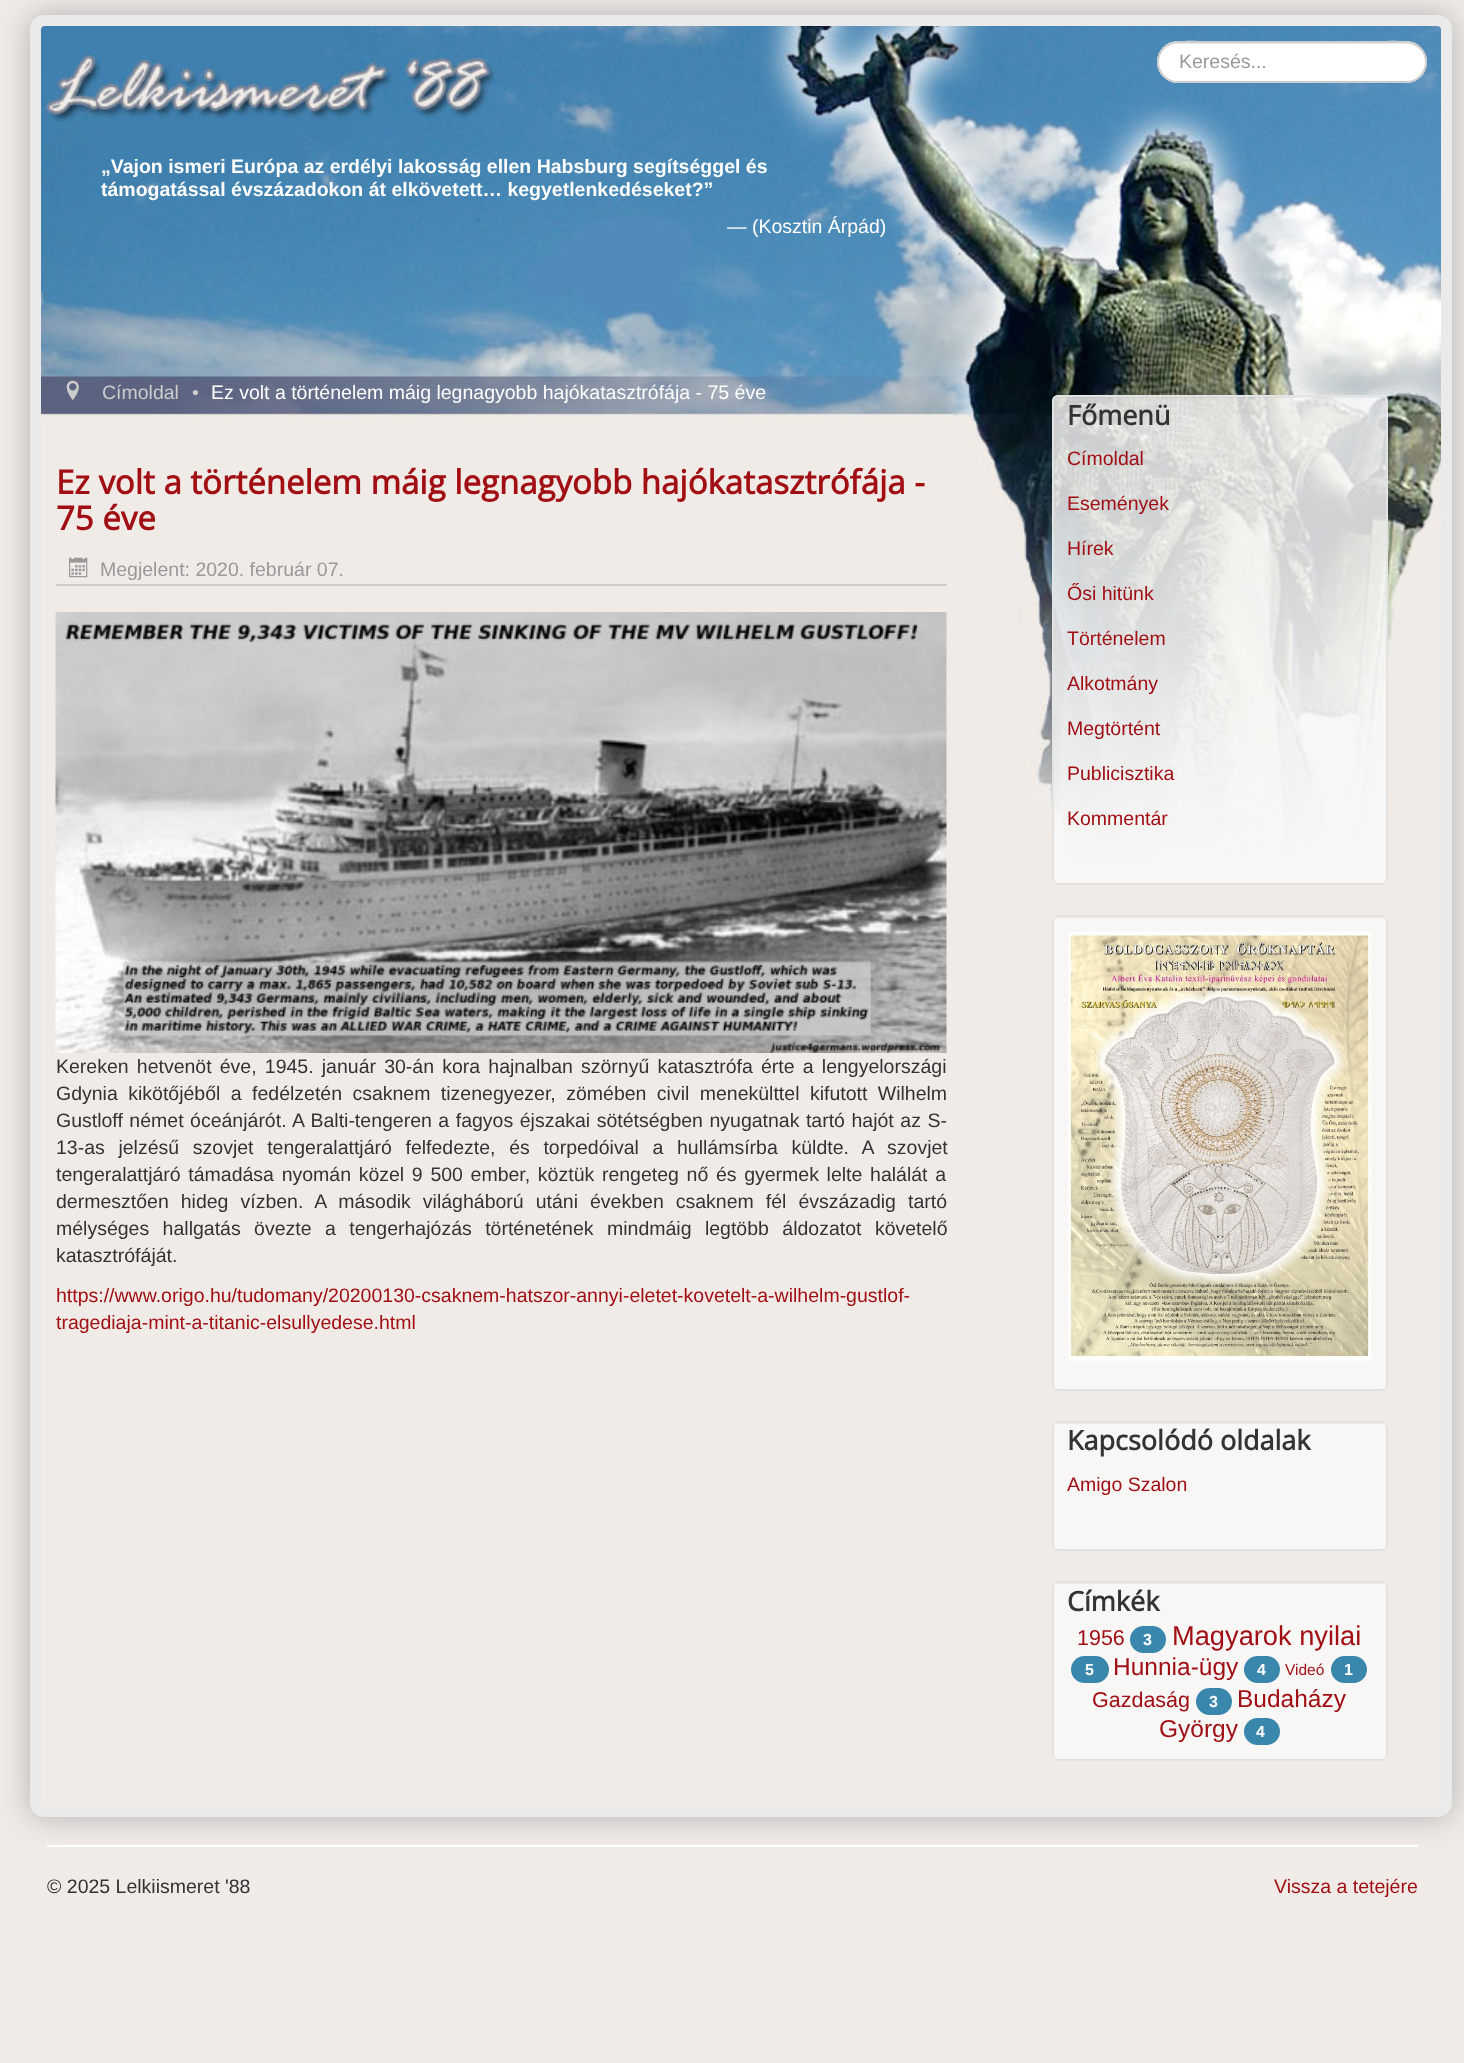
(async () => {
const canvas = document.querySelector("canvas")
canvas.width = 1464
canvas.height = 2063
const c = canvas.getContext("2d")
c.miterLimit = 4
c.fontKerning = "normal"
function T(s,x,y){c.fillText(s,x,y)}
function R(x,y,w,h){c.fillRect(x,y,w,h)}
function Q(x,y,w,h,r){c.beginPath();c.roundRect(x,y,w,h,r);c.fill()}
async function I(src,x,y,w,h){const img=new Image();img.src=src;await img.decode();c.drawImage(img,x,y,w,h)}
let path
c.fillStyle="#f0ebe6"
R(0,0,1464,2063)
c.save()
path = new Path2D("M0 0h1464v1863h-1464zm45 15h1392c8.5 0 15 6.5 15 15v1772c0 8.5-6.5 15-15 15h-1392c-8.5 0-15-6.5-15-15v-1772c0-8.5 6.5-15 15-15z")
c.clip(path,"evenodd")
c.fillStyle="#afafaf"
c.filter="blur(15px)"
c.beginPath()
c.roundRect(30,15,1422,1802,15)
c.fill()
c.filter="none"
c.restore()
await I("1.png",41,26,1400,833)
c.beginPath()
c.roundRect(35.5,20.5,1411,1791,9.5)
c.strokeStyle="#eaeaea"
c.lineWidth=11
c.stroke()
c.fillStyle="#fff"
Q(1157,41,270,42,21)
c.fillStyle="#ececec"
path = new Path2D("M1178 44h228c10 0 19 8 19 18c1-29-44-20-57-20h-152c-14 0-59-9-58 20c0-10 9-18 20-18z")
c.fill(path)
c.beginPath()
c.roundRect(1158,42,268,40,20)
c.strokeStyle="#ccc"
c.lineWidth=2
c.stroke()
c.font="19.5px Liberation Sans"
c.fillStyle="#999"
T("Keresés...",1179,68)
c.font="bold 19.5px Liberation Sans"
c.fillStyle="#fff"
T("„Vajon ismeri Európa az erdélyi lakosság ellen Habsburg segítséggel és",101,173)
T("támogatással évszázadokon át elkövetett… kegyetlenkedéseket?”",101,196)
c.font="19.5px Liberation Sans"
T("— (Kosztin Árpád)",727,233)
await I("2.png",66,380,13,20)
c.fillStyle="#ccc"
T("Címoldal",102,399)
T("•",192,399)
c.fillStyle="#fff"
T("Ez volt a történelem máig legnagyobb hajókatasztrófája - 75 éve",211,399)
c.font="bold 33px Open Sans"
c.fillStyle="#a10f15"
T("Ez volt a történelem máig legnagyobb hajókatasztrófája -",56,494)
T("75 éve",56,530)
c.fillStyle="#ccc"
R(56,584,891,2)
await I("3.png",69,557,19,21)
c.font="19.5px Liberation Sans"
c.fillStyle="#999"
T("Megjelent: 2020. február 07.",100,576)
await I("4.png",55,612,892,441)
c.wordSpacing="2.75px"
c.fillStyle="#333"
T("Kereken hetvenöt éve, 1945. január 30-án kora hajnalban szörnyű katasztrófa érte a lengyelországi",56,1073)
c.wordSpacing="5px"
T("Gdynia kikötőjéből a fedélzetén csaknem tizenegyezer, zömében civil menekülttel kifutott Wilhelm",56,1100)
c.wordSpacing="1.1px"
T("Gustloff német óceánjárót. A Balti-tengeren a fagyos éjszakai sötétségben nyugatnak tartó hajót az S-",56,1127)
c.wordSpacing="8.25px"
T("13-as jelzésű szovjet tengeralattjáró felfedezte, és torpedóival a hullámsírba küldte. A szovjet",56,1154)
c.wordSpacing="2.25px"
T("tengeralattjáró támadása nyomán közel 9 500 ember, köztük rengeteg nő és gyermek lelte halálát a",56,1181)
c.wordSpacing="6.6px"
T("dermesztően hideg vízben. A második világháború utáni években csaknem fél évszázadig tartó",56,1208)
c.wordSpacing="8px"
T("mélységes hallgatás övezte a tengerhajózás történetének mindmáig legtöbb áldozatot követelő",56,1235)
c.wordSpacing="0px"
T("katasztrófáját.",56,1262)
c.fillStyle="#a10f15"
T("https://www.origo.hu/tudomany/20200130-csaknem-hatszor-annyi-eletet-kovetelt-a-wilhelm-gustlof-",56,1302)
T("tragediaja-mint-a-titanic-elsullyedese.html",56,1329)
c.fillStyle="#fafafacc"
Q(1052,395,336,490,6)
c.fillStyle="#0000000d"
path = new Path2D("M1058 398h324c2 0 4 2 4 4c0-3-2-6-5-6h-323c-3 0-5 3-5 6c0-2 2-4 5-4z")
c.fill(path)
c.beginPath()
c.roundRect(1053,396,334,488,5)
c.strokeStyle="#e3e3e3"
c.stroke()
c.font="bold 27px Open Sans"
c.fillStyle="#333"
T("Főmenü",1067,425)
c.font="19.5px Liberation Sans"
c.fillStyle="#a10f15"
T("Címoldal",1067,465)
T("Események",1067,510)
T("Hírek",1067,555)
T("Ősi hitünk",1067,600)
T("Történelem",1067,645)
T("Alkotmány",1067,690)
T("Megtörtént",1067,735)
T("Publicisztika",1067,780)
T("Kommentár",1067,825)
c.fillStyle="#f8f7f6"
Q(1052,915,336,476,6)
c.fillStyle="#ecebea"
path = new Path2D("M1058 918h324c2 0 4 2 4 4c0-3-2-5-5-5h-323c-3 0-5 2-5 5c0-2 2-4 5-4z")
c.fill(path)
c.beginPath()
c.roundRect(1053,916,334,474,5)
c.stroke()
await I("5.png",1068,931,303,430)
c.fillStyle="#f8f7f6"
Q(1052,1421,336,130,6)
c.fillStyle="#ecebea"
path = new Path2D("M1058 1424h324c2 0 4 2 4 4c0-3-2-6-5-6h-323c-3 0-5 3-5 6c0-2 2-4 5-4z")
c.fill(path)
c.beginPath()
c.roundRect(1053,1422,334,128,5)
c.stroke()
c.font="bold 27px Open Sans"
c.fillStyle="#333"
T("Kapcsolódó oldalak",1067,1450)
c.font="19.5px Liberation Sans"
c.fillStyle="#a10f15"
T("Amigo Szalon",1067,1491)
c.fillStyle="#f8f7f6"
Q(1052,1581,336,180,6)
c.fillStyle="#ecebea"
path = new Path2D("M1058 1584h324c2 0 4 2 4 4c0-3-2-5-5-5h-323c-3 0-5 2-5 5c0-2 2-4 5-4z")
c.fill(path)
c.beginPath()
c.roundRect(1053,1582,334,178,5)
c.stroke()
c.font="bold 27px Open Sans"
c.fillStyle="#333"
T("Címkék",1067,1611)
c.font="27.25px Liberation Sans"
c.fillStyle="#a10f15"
T("Magyarok nyilai",1172,1645)
c.fillStyle="#3a87ad"
Q(1071,1656,38,27,13.5)
c.font="bold 16px Liberation Sans"
c.fillStyle="#fff"
T("5",1085,1675)
c.font="21.5px Liberation Sans"
c.fillStyle="#a10f15"
T("1956",1077,1645)
c.fillStyle="#3a87ad"
Q(1130,1626,36,27,13.5)
c.font="bold 16px Liberation Sans"
c.fillStyle="#fff"
T("3",1143,1645)
c.font="24.5px Liberation Sans"
c.fillStyle="#a10f15"
T("Hunnia-ügy",1113,1675)
c.fillStyle="#3a87ad"
Q(1244,1656,36,27,13.5)
c.font="bold 16px Liberation Sans"
c.fillStyle="#fff"
T("4",1257,1675)
c.font="15.5px Liberation Sans"
c.fillStyle="#a10f15"
T("Videó",1285,1675)
c.fillStyle="#3a87ad"
Q(1331,1656,36,27,13.5)
c.font="bold 16px Liberation Sans"
c.fillStyle="#fff"
T("1",1344,1675)
c.font="21.5px Liberation Sans"
c.fillStyle="#a10f15"
T("Gazdaság",1092,1707)
c.fillStyle="#3a87ad"
Q(1196,1688,36,27,13.5)
c.font="bold 16px Liberation Sans"
c.fillStyle="#fff"
T("3",1209,1707)
c.font="24.5px Liberation Sans"
c.fillStyle="#a10f15"
T("Budaházy",1237,1707)
T("György",1159,1737)
c.fillStyle="#3a87ad"
Q(1244,1718,36,27,13.5)
c.font="bold 16px Liberation Sans"
c.fillStyle="#fff"
T("4",1256,1737)
c.fillStyle="#eee"
R(47,1844,1371,1)
c.fillStyle="#fff"
R(47,1845,1371,2)
c.font="19.5px Liberation Sans"
c.fillStyle="#333"
T("© 2025 Lelkiismeret '88",47,1893)
c.fillStyle="#a10f15"
T("Vissza a tetejére",1274,1893)
})()
